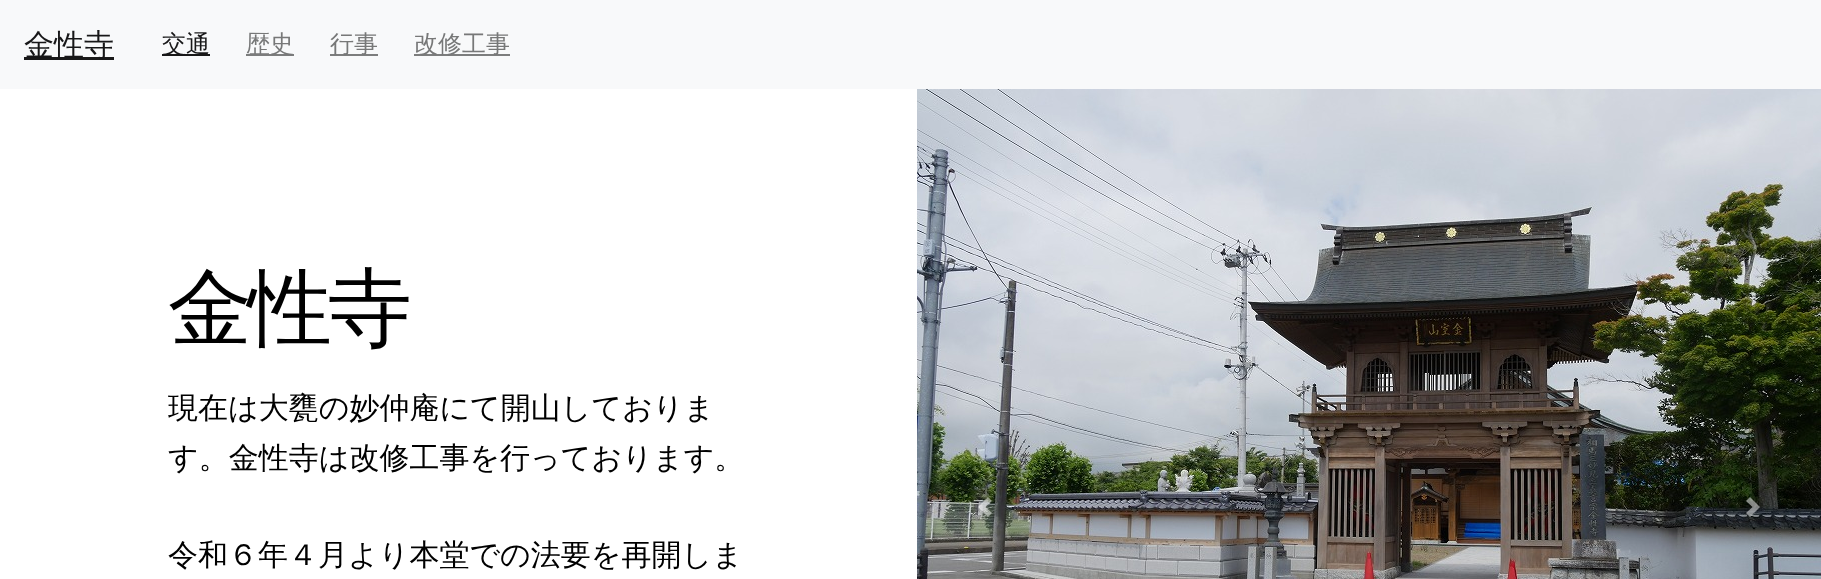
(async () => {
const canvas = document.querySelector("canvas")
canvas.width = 1821
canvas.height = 579
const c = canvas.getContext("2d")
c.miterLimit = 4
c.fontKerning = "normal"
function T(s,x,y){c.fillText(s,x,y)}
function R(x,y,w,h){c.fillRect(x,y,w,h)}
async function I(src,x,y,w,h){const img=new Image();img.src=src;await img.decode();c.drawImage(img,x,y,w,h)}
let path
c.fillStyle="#fff"
R(0,0,1821,579)
c.fillStyle="#f8f9fa"
R(0,0,1821,89)
c.fillStyle="#191919"
R(24,57,90,3)
c.font="500 30px WenQuanYi Zen Hei"
c.fillStyle="#171718"
T("金性寺",24,55)
c.fillStyle="#191919"
R(162,54,48,2)
c.font="500 24px WenQuanYi Zen Hei"
c.fillStyle="#171718"
T("交通",162,52)
c.fillStyle="#7c7d7d"
R(246,54,48,2)
c.fillStyle="#777878"
T("歴史",246,52)
c.fillStyle="#7c7d7d"
R(330,54,48,2)
c.fillStyle="#777878"
T("行事",330,52)
c.fillStyle="#7c7d7d"
R(414,54,96,2)
c.fillStyle="#777878"
T("改修工事",414,52)
c.letterSpacing="-4px"
c.font="500 84px WenQuanYi Zen Hei"
c.fillStyle="#000"
T("金性寺",168,337)
c.letterSpacing="0px"
c.font="500 30px WenQuanYi Zen Hei"
T("現在は大甕の妙仲庵にて開山しておりま",168,418)
T("す。金性寺は改修工事を行っております。",168,468)
T("令和６年４月より本堂での法要を再開しま",168,565)
await I("1.png",917,89,904,490)
c.fillStyle="#ffffff80"
path = new Path2D("M988 497l-10 10l10 10l4-4l-6.5-6l6.5-6z")
c.fill(path)
path = new Path2D("M1750 497l-4 4l6.5 6l-6.5 6l4 4l10-10z")
c.fill(path)
})()
